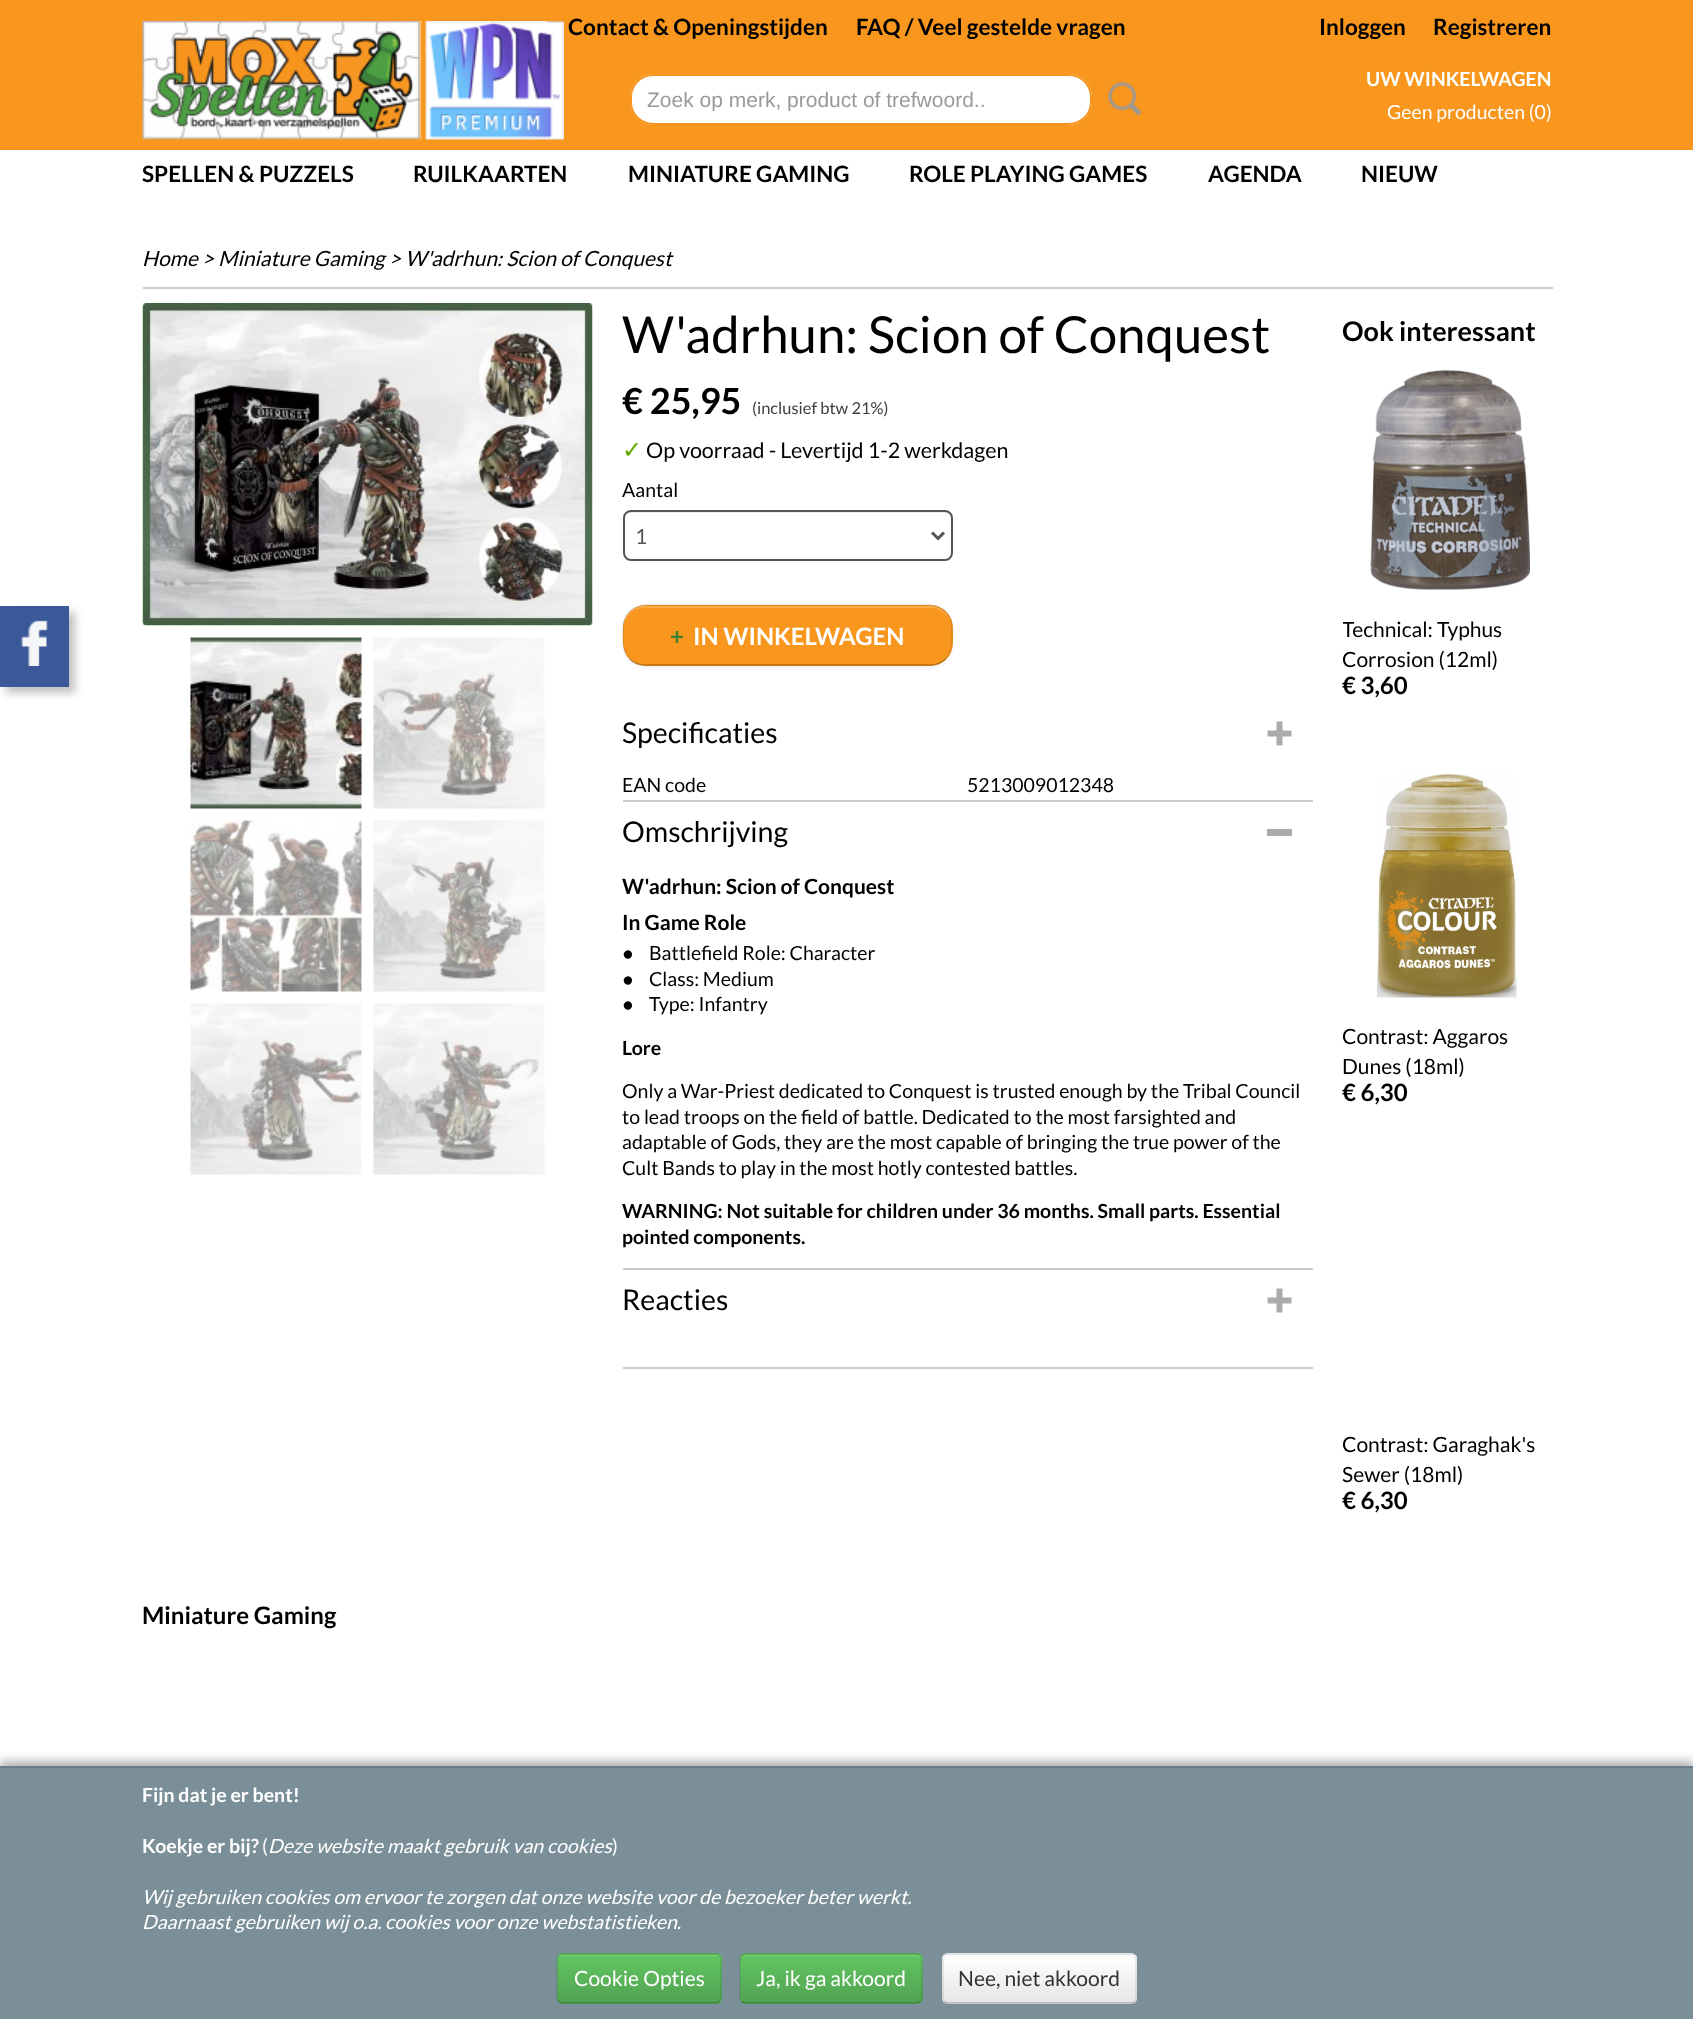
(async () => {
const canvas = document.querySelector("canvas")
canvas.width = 1693
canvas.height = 2019
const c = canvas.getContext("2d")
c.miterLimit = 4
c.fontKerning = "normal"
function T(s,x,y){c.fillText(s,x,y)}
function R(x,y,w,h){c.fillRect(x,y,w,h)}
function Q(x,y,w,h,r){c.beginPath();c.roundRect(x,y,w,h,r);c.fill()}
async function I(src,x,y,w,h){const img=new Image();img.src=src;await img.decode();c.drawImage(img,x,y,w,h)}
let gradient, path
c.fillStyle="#fff"
R(0,0,1693,2019)
c.fillStyle="#f8961d"
R(0,0,1693,150)
await I("1.png",142,21,422,119)
c.font="bold 22.5px Lato"
c.fillStyle="#000"
T("Contact & Openingstijden",568,35)
T("FAQ / Veel gestelde vragen",856,35)
T("Inloggen",1319,35)
T("Registreren",1433,35)
c.font="bold 19.5px Lato"
c.fillStyle="#fff"
T("UW WINKELWAGEN",1366,86)
c.font="19.5px Lato"
T("Geen producten (0)",1387,119)
Q(630,74,462,51,23)
c.fillStyle="#ececec"
path = new Path2D("M652 76h418c11 0 20 10 20 22v6c0 3-1 7-2 9c2-3 3-7 3-11v-6c0-12-9-21-21-21h-417c-12 0-21 9-21 21v2c0-12 9-22 20-22z")
c.fill(path)
c.beginPath()
c.roundRect(631,75,460,49,22)
c.strokeStyle="#f7941d"
c.lineWidth=2
c.stroke()
c.save()
c.beginPath()
c.rect(647,87,429,24)
c.clip()
c.font="21px Liberation Sans"
c.fillStyle="#999"
T("Zoek op merk, product of trefwoord..",647,107)
c.restore()
await I("2.png",1108,82,34,34)
c.font="bold 22.5px Lato"
c.fillStyle="#000"
T("SPELLEN & PUZZELS",142,182)
T("RUILKAARTEN",413,182)
T("MINIATURE GAMING",628,182)
T("ROLE PLAYING GAMES",909,182)
T("AGENDA",1208,182)
T("NIEUW",1361,182)
c.fillStyle="#ccc"
R(143,287,1410,2)
c.font="italic 21px Lato"
c.fillStyle="#000"
T("Home > Miniature Gaming > W'adrhun: Scion of Conquest",142,266)
c.fillStyle="#3232324d"
c.filter="blur(4px)"
c.beginPath()
c.rect(6,612,69,81)
c.fill()
c.filter="none"
c.fillStyle="#3b5998"
R(0,606,69,81)
await I("3.png",20,620,29,46)
await I("4.png",142,303,451,323)
await I("5.png",190,637,172,172)
await I("6.png",373,637,172,172)
await I("7.png",190,820,172,172)
await I("8.png",373,820,172,172)
await I("9.png",190,1003,172,172)
await I("10.png",373,1003,172,172)
c.font="51px Lato"
c.fillStyle="#000"
T("W'adrhun: Scion of Conquest",622,353)
c.font="bold 36px Lato"
T("€ 25,95",622,414)
c.font="16.5px Lato"
c.fillStyle="#404040"
T("(inclusief btw 21%)",752,414)
c.font="24px DejaVu Sans"
c.fillStyle="#5ea600"
T("✓",622,458)
c.font="21.5px Lato"
c.fillStyle="#000"
T("Op voorraad - Levertijd 1-2 werkdagen",646,458)
c.font="19.5px Lato"
T("Aantal",622,497)
c.fillStyle="#ececec"
path = new Path2D("M630 513h315c3 0 6 3 6 6v-1c0-3-3-6-6-6h-315c-3 0-6 3-6 6v1c0-3 3-6 6-6z")
c.fill(path)
c.beginPath()
c.roundRect(624,511,328,49,7)
c.strokeStyle="#555"
c.stroke()
path = new Path2D("M932 532.5l6 6l6-6")
c.lineWidth=3
c.stroke(path)
c.font="21px Lato"
c.fillStyle="#555"
T("1",635,544)
c.fillStyle="#0000000d"
c.filter="blur(1.5px)"
c.beginPath()
c.roundRect(623,606,330,62,23)
c.fill()
c.filter="none"
c.fillStyle="#f8961d"
Q(623,605,330,61,23)
c.fillStyle="#f9ab4a"
path = new Path2D("M645 608h285c12 0 21 9 21 20v-1c0-12-9-21-21-21h-285c-12 0-21 9-21 21v1c0-11 9-20 21-20z")
c.fill(path)
path = new Path2D("M945.5 659c-4 4-9.5 6-15.5 6h-285c-6 0-11.5-2-15.5-6")
c.strokeStyle="#00000040"
c.lineWidth=1.5
c.stroke(path)
path = new Path2D("M629.5 659c-7-7.5-6.5-17-6.5-26.5l.5-10c2-10 11.5-17 21.5-17.5h285c10 .5 19.5 7.5 21.5 17.5l.5 10c0 9.5 .5 19-6.5 26.5")
c.strokeStyle="#0000001a"
c.stroke(path)
c.font="bold 24px Lato"
c.fillStyle="#3f8132"
T("+",670,645)
c.fillStyle="#fff"
T("IN WINKELWAGEN",693,645)
c.fillStyle="#ccc"
R(623,800,690,2)
await I("11.png",1267,721,25,25)
c.font="28.5px Lato"
c.fillStyle="#000"
T("Specificaties",622,743)
c.font="19.5px Lato"
T("EAN code",622,792)
T("5213009012348",967,792)
c.fillStyle="#ccc"
R(623,1268,690,2)
c.fillStyle="#ababab"
R(1267,829,25,7)
c.font="28.5px Lato"
c.fillStyle="#000"
T("Omschrijving",622,842)
c.font="bold 21px Lato"
T("W'adrhun: Scion of Conquest",622,894)
T("In Game Role",622,930)
c.font="19.5px Liberation Serif"
T("●",622,960)
c.font="19.5px Lato"
T("Battlefield Role: Character",649,960)
c.font="19.5px Liberation Serif"
T("●",622,986)
c.font="19.5px Lato"
T("Class: Medium",649,986)
c.font="19.5px Liberation Serif"
T("●",622,1011)
c.font="19.5px Lato"
T("Type: Infantry",649,1011)
c.font="bold 19.5px Lato"
T("Lore",622,1055)
c.font="19.5px Lato"
T("Only a War-Priest dedicated to Conquest is trusted enough by the Tribal Council",622,1098)
T("to lead troops on the field of battle. Dedicated to the most farsighted and",622,1124)
T("adaptable of Gods, they are the most capable of bringing the true power of the",622,1149)
T("Cult Bands to play in the most hotly contested battles.",622,1175)
c.font="bold 19.5px Lato"
T("WARNING: Not suitable for children under 36 months. Small parts. Essential",622,1218)
T("pointed components.",622,1244)
c.fillStyle="#ccc"
R(623,1367,690,2)
await I("11.png",1267,1288,25,25)
c.font="28.5px Lato"
c.fillStyle="#000"
T("Reacties",622,1310)
c.font="bold 27px Lato"
T("Ook interessant",1342,341)
await I("12.png",1370,369,160,221)
c.save()
c.beginPath()
c.rect(1343,614,210,60)
c.clip()
c.font="21px Lato"
T("Technical: Typhus",1342,637)
T("Corrosion (12ml)",1342,667)
c.restore()
c.font="bold 24px Lato"
T("€ 3,60",1342,694)
await I("13.png",1377,773,140,225)
c.save()
c.beginPath()
c.rect(1343,1020,210,60)
c.clip()
c.font="21px Lato"
T("Contrast: Aggaros",1342,1044)
c.restore()
c.font="21px Lato"
T("Dunes (18ml)",1342,1074)
c.font="bold 24px Lato"
T("€ 6,30",1342,1101)
c.save()
c.beginPath()
c.rect(1343,1428,210,60)
c.clip()
c.font="21px Lato"
T("Contrast: Garaghak's",1342,1452)
c.restore()
c.font="21px Lato"
T("Sewer (18ml)",1342,1482)
c.font="bold 24px Lato"
T("€ 6,30",1342,1509)
T("Miniature Gaming",142,1624)
c.fillStyle="#0000004d"
c.filter="blur(5px)"
c.beginPath()
c.rect(0,1761,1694,254)
c.fill()
c.filter="none"
c.fillStyle="#7a8f98"
R(0,1768,1693,251)
c.fillStyle="#697e87"
R(0,1766,1693,2)
c.font="bold 19.5px Lato"
c.fillStyle="#fff"
T("Fijn dat je er bent!",142,1802)
T("Koekje er bij?",142,1853)
c.font="19.5px Lato"
T("(",262,1853)
c.font="italic 19.5px Lato"
T("Deze website maakt gebruik van cookies",268,1853)
c.font="19.5px Lato"
T(")",612,1853)
c.font="italic 19.5px Lato"
T("Wij gebruiken cookies om ervoor te zorgen dat onze website voor de bezoeker beter werkt.",142,1904)
T("Daarnaast gebruiken wij o.a. cookies voor onze webstatistieken.",142,1929)
c.fillStyle="#5bb75b"
Q(557,1953,165,51,6)
c.save()
c.beginPath()
c.roundRect(557,1953,165,51,6)
c.clip()
gradient = c.createLinearGradient(639,1955,639,2003)
gradient.addColorStop(0,"#62c462")
gradient.addColorStop(1,"#51a351")
c.fillStyle = gradient
R(557,1955,165,48)
c.restore()
c.fillStyle="#81d081"
path = new Path2D("M562 1956h154c2 0 4 2 4 4c0-3-2-5-5-5h-152c-3 0-5 2-5 5c0-2 2-4 4-4z")
c.fill(path)
path = new Path2D("M719 2001.5c-1 1-2 1.5-3.5 1.5h-153c-1.5 0-2.5-.5-3.5-1.5")
c.strokeStyle="#00000040"
c.stroke(path)
path = new Path2D("M559 2001.5c-1-1-2-2-2-3.5v-39c0-1.5 1-2.5 2-3.5c1-1 2-1.5 3.5-1.5h153c1.5 0 2.5 .5 3.5 1.5c1 1 2 2 2 3.5v39c0 1.5-1 2.5-2 3.5")
c.strokeStyle="#0000001a"
c.stroke(path)
c.font="21px Lato"
c.fillStyle="#fff"
T("Cookie Opties",574,1986)
c.fillStyle="#5bb75b"
Q(740,1953,183,51,6)
c.save()
c.beginPath()
c.roundRect(740,1953,183,51,6)
c.clip()
gradient = c.createLinearGradient(831,1955,831,2003)
gradient.addColorStop(0,"#62c462")
gradient.addColorStop(1,"#51a351")
c.fillStyle = gradient
R(740,1955,183,48)
c.restore()
c.fillStyle="#81d081"
path = new Path2D("M746 1956h170l4 1l1 3c0-3-2-5-5-5h-170c-3 0-5 2-5 5c0-2 2-4 5-4z")
c.fill(path)
path = new Path2D("M920 2001.5c-1 1-2 1.5-3.5 1.5h-171c-1.5 0-2.5-.5-3.5-1.5")
c.strokeStyle="#00000040"
c.stroke(path)
path = new Path2D("M742 2001.5c-1-1-2-2-2-3.5v-39c0-1.5 1-2.5 2-3.5c1-1 2-1.5 3.5-1.5h171c1.5 0 2.5 .5 3.5 1.5c1 1 2 2 2 3.5v39c0 1.5-1 2.5-2 3.5")
c.strokeStyle="#0000001a"
c.stroke(path)
c.fillStyle="#fff"
T("Ja, ik ga akkoord",756,1986)
c.fillStyle="#f5f5f5"
Q(942,1953,195,51,6)
c.save()
c.beginPath()
c.roundRect(942,1953,195,51,6)
c.clip()
gradient = c.createLinearGradient(1040,1955,1040,2003)
gradient.addColorStop(0,"#fff")
gradient.addColorStop(1,"#e6e6e6")
c.fillStyle = gradient
R(942,1955,195,48)
c.restore()
path = new Path2D("M1134.5 2001.5c-1 1-2 1.5-3.5 1.5h-183c-1.5 0-2.5-.5-3.5-1.5")
c.strokeStyle="#00000040"
c.stroke(path)
path = new Path2D("M944.5 2001.5c-1-1-1.5-2-1.5-3.5v-39c0-1.5 .5-2.5 1.5-3.5c1-1 2-1.5 3.5-1.5h183c1.5 0 2.5 .5 3.5 1.5c1 1 1.5 2 1.5 3.5v39c0 1.5-.5 2.5-1.5 3.5")
c.strokeStyle="#0000001a"
c.stroke(path)
c.fillStyle="#333"
T("Nee, niet akkoord",958,1986)
})()
